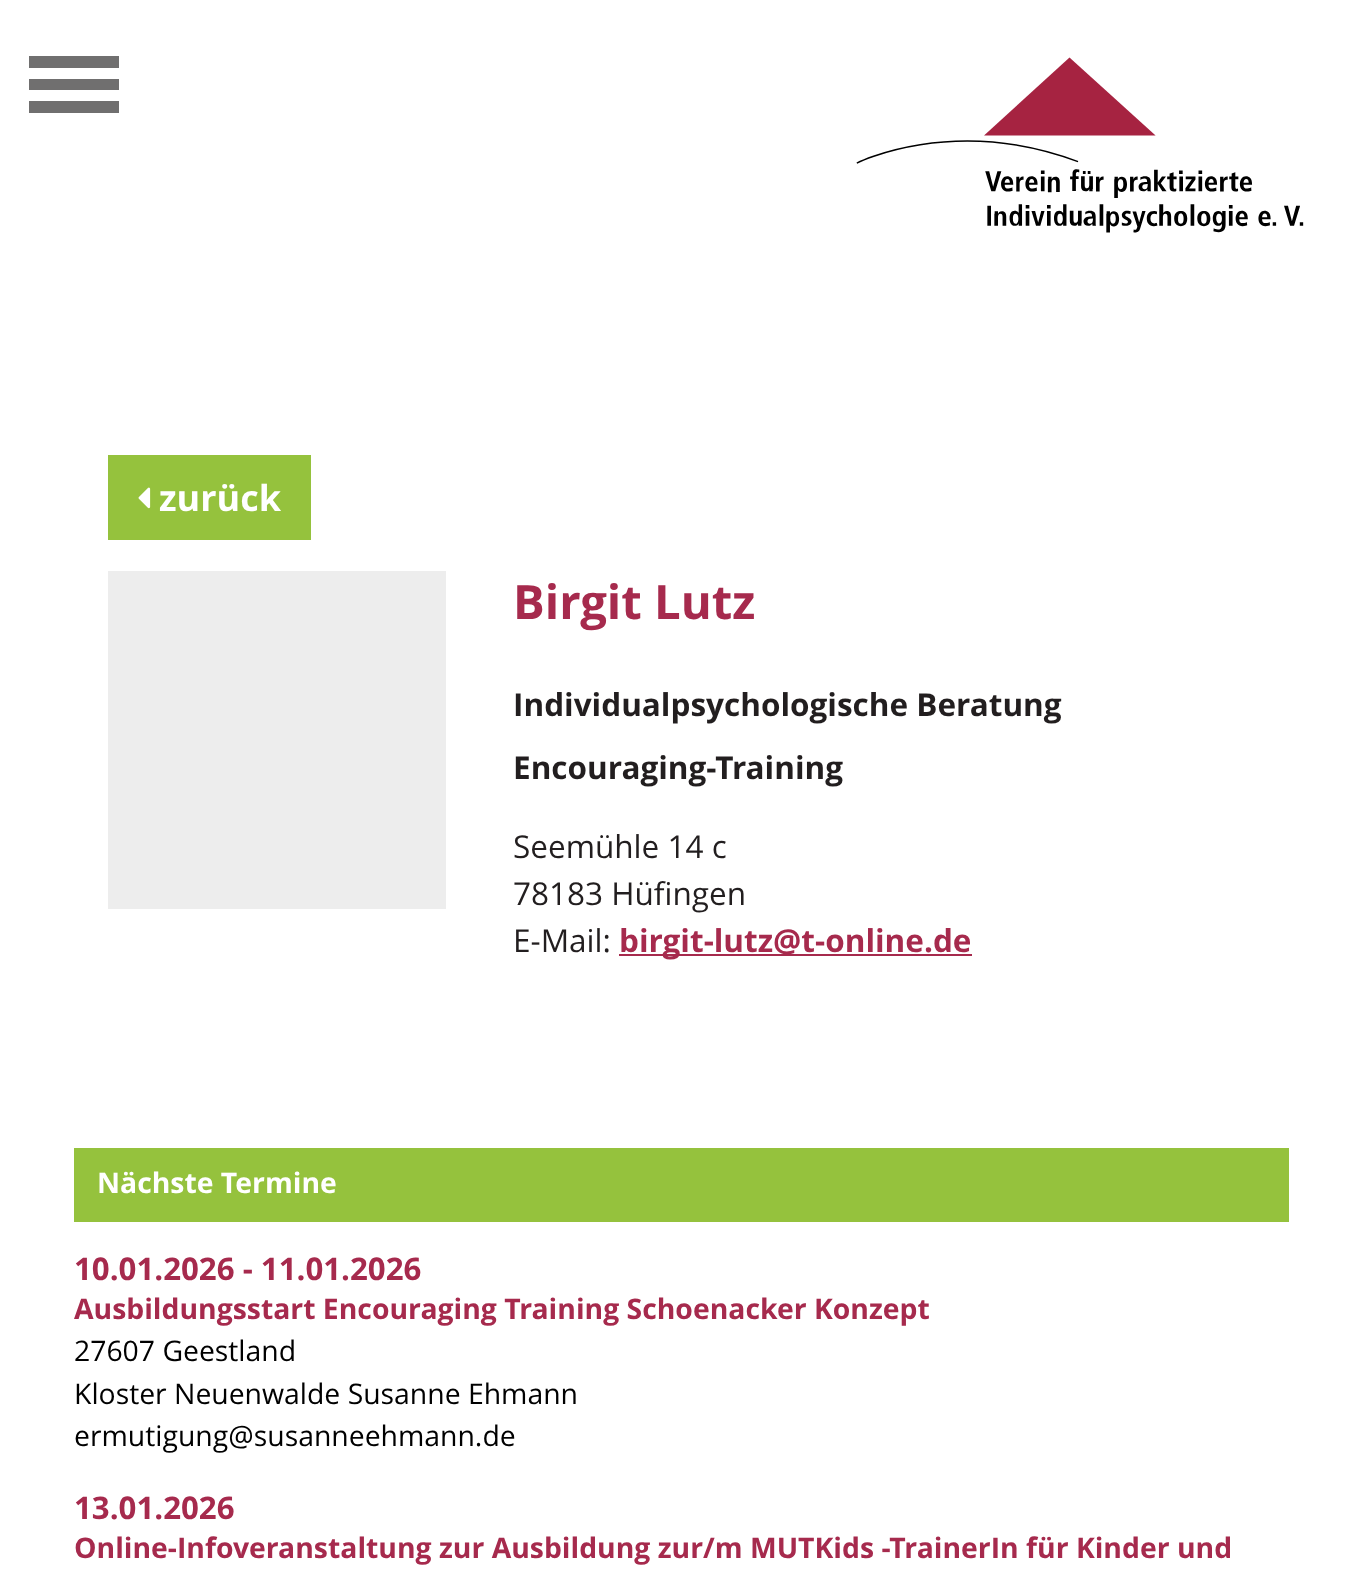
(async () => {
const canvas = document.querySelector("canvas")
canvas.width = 1362
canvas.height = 1571
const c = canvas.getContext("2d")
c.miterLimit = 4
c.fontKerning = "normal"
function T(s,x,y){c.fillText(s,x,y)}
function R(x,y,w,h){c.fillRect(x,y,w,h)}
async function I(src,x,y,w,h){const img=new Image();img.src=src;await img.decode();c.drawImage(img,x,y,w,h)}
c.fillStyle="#fff"
R(0,0,1362,1571)
c.fillStyle="#706f6f"
R(29,56,90,12)
R(29,79,90,11)
R(29,101,90,12)
await I("1.png",856,57,448,176)
c.fillStyle="#95c23d"
R(108,455,203,85)
await I("2.png",138,487,13,22)
c.font="bold 36px Open Sans"
c.fillStyle="#fff"
T("zurück",159,511)
c.fillStyle="#ededed"
R(108,571,338,338)
c.font="bold 47.25px Open Sans"
c.fillStyle="#a62a4d"
T("Birgit Lutz",513,619)
c.font="bold 31.5px Open Sans"
c.fillStyle="#221e1f"
T("Individualpsychologische Beratung",513,716)
T("Encouraging-Training",513,779)
c.font="31.5px Open Sans"
T("Seemühle 14 c",513,858)
T("78183 Hüfingen",513,905)
T("E-Mail:",513,952)
c.fillStyle="#a62a4d"
R(619,954,353,2)
c.font="bold 31.5px Open Sans"
T("birgit-lutz@t-online.de",619,952)
c.fillStyle="#95c23d"
R(74,1148,1215,74)
c.font="bold 28.35px Open Sans"
c.fillStyle="#fff"
T("Nächste Termine",97,1193)
c.font="bold 31.25px Open Sans"
c.fillStyle="#a62a4d"
T("10.01.2026 - 11.01.2026",74,1280)
c.font="bold 28.35px Open Sans"
T("Ausbildungsstart Encouraging Training Schoenacker Konzept",74,1319)
c.font="28.35px Open Sans"
c.fillStyle="#000"
T("27607 Geestland",74,1361)
T("Kloster Neuenwalde Susanne Ehmann",74,1404)
T("ermutigung@susanneehmann.de",74,1446)
c.font="bold 31.25px Open Sans"
c.fillStyle="#a62a4d"
T("13.01.2026",74,1519)
c.font="bold 28.35px Open Sans"
T("Online-Infoveranstaltung zur Ausbildung zur/m MUTKids -TrainerIn für Kinder und",74,1558)
})()
